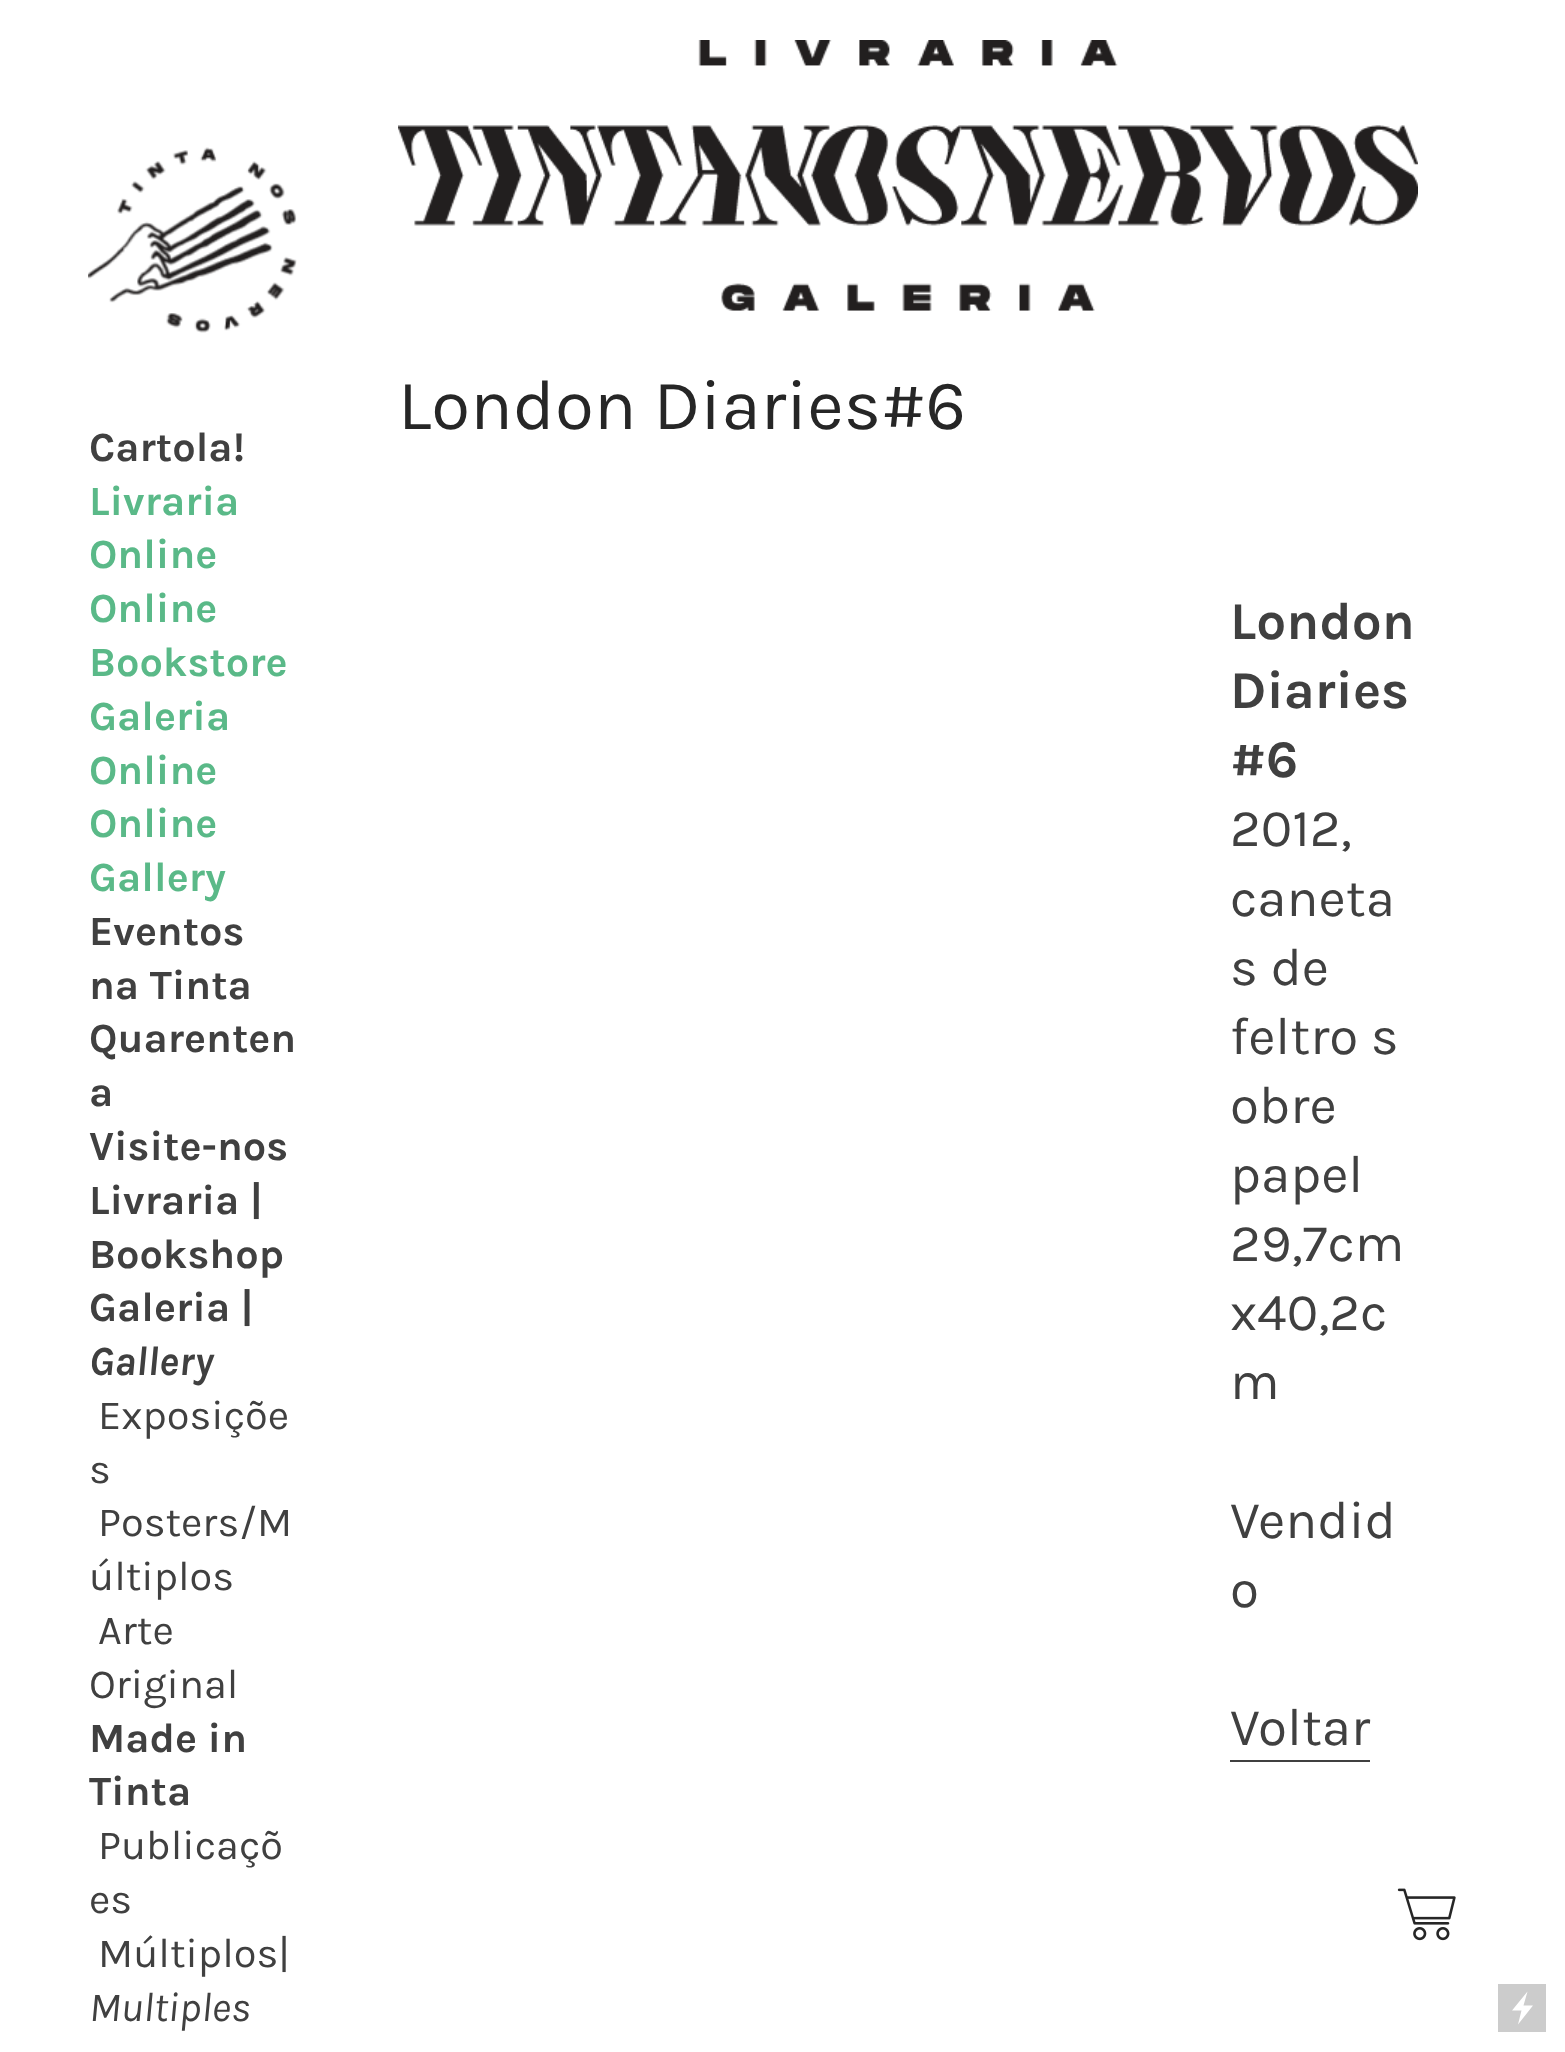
(async () => {
const canvas = document.querySelector("canvas")
canvas.width = 1565
canvas.height = 2052
const c = canvas.getContext("2d")
c.miterLimit = 4
c.fontKerning = "normal"
function T(s,x,y){c.fillText(s,x,y)}
function R(x,y,w,h){c.fillRect(x,y,w,h)}
async function I(src,x,y,w,h){const img=new Image();img.src=src;await img.decode();c.drawImage(img,x,y,w,h)}
let path
c.fillStyle="#fff"
R(0,0,1565,2052)
await I("1.png",88,147,209,186)
c.font="bold 41.5px Karla"
c.fillStyle="#404040"
T("Cartola!",89,461)
c.fillStyle="#5ab988"
T("Livraria",89,515)
T("Online",89,568)
T("Online",89,622)
T("Bookstore",89,676)
T("Galeria",89,730)
T("Online",89,784)
T("Online",89,837)
T("Gallery",89,891)
c.fillStyle="#404040"
T("Eventos",89,945)
T("na Tinta",89,999)
T("Quarenten",89,1052)
T("a",89,1106)
T("Visite-nos",89,1160)
T("Livraria |",89,1214)
T("Bookshop",89,1268)
T("Galeria |",89,1321)
c.font="italic bold 41.5px Karla"
T("Gallery",89,1375)
c.font="41.5px Karla"
T("Exposiçõe",98,1429)
T("s",89,1483)
T("Posters/M",98,1536)
T("últiplos",89,1590)
T("Arte",98,1644)
T("Original",89,1698)
c.font="bold 41.5px Karla"
T("Made in",89,1752)
T("Tinta",89,1805)
c.font="41.5px Karla"
T("Publicaçõ",98,1859)
T("es",89,1913)
T("Múltiplos|",98,1967)
c.font="italic 41.5px Karla"
T("Multiples",89,2021)
await I("2.png",398,40,1020,271)
c.font="71px Karla"
c.fillStyle="#262626"
T("London Diaries#6",398,429)
c.font="bold 53px Karla"
c.fillStyle="#404040"
T("London",1230,639)
T("Diaries",1230,708)
T("#6",1230,777)
c.font="53px Karla"
T("2012,",1230,846)
T("caneta",1230,916)
T("s de",1230,985)
T("feltro s",1230,1054)
T("obre",1230,1123)
T("papel",1230,1192)
T("29,7cm",1230,1261)
T("x40,2c",1230,1330)
T("m",1230,1399)
T("Vendid",1230,1538)
T("o",1230,1607)
T("Voltar",1230,1745)
R(1230,1760,140,2)
await I("3.png",1397,1888,59,53)
c.fillStyle="#ccc"
R(1498,1984,48,48)
c.fillStyle="#fff"
path = new Path2D("M1533 2005.5h-9.5l4-14l-15.5 19h9.5l-3.5 14z")
c.fill(path)
})()
